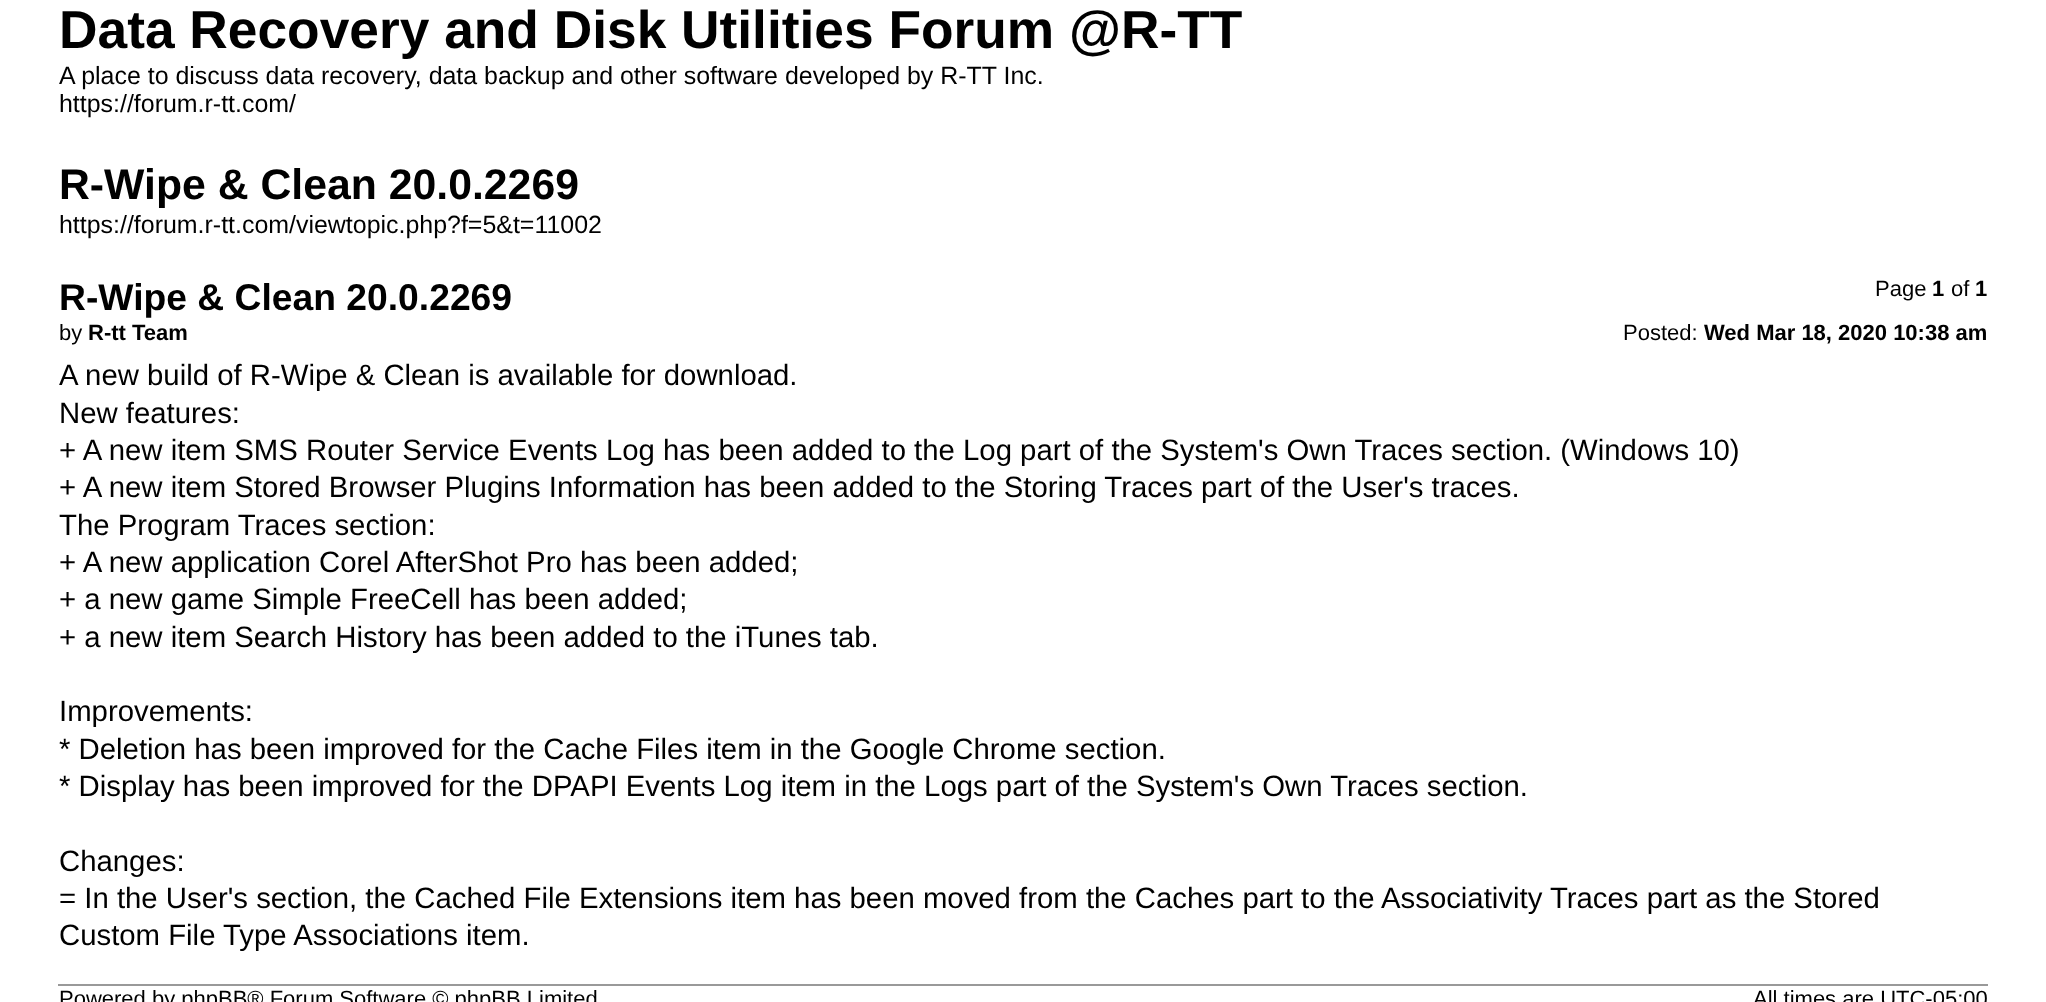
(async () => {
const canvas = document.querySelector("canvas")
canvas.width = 2046
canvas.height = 1002
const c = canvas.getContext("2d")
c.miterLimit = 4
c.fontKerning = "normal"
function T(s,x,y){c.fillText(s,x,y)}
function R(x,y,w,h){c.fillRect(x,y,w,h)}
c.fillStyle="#fff"
R(0,0,2046,1002)
c.font="bold 53.3px Liberation Sans"
c.fillStyle="#000"
T("Data Recovery and Disk Utilities Forum @R-TT",59,48)
c.font="24.95px Liberation Sans"
T("A place to discuss data recovery, data backup and other software developed by R-TT Inc.",59,84)
T("https://forum.r-tt.com/",59,112)
c.font="bold 42.75px Liberation Sans"
T("R-Wipe & Clean 20.0.2269",59,199)
c.font="24.95px Liberation Sans"
T("https://forum.r-tt.com/viewtopic.php?f=5&t=11002",59,233)
c.font="22px Liberation Sans"
T("Page",1875,296)
c.font="bold 22px Liberation Sans"
T("1",1932,296)
c.font="22px Liberation Sans"
T("of",1951,296)
c.font="bold 22px Liberation Sans"
T("1",1975,296)
c.font="bold 37.25px Liberation Sans"
T("R-Wipe & Clean 20.0.2269",59,310)
c.font="22px Liberation Sans"
T("by",59,340)
c.font="bold 22px Liberation Sans"
T("R-tt Team",88,340)
c.font="22px Liberation Sans"
T("Posted:",1623,340)
c.font="bold 22px Liberation Sans"
T("Wed Mar 18, 2020 10:38 am",1704,340)
c.font="29.33px Liberation Sans"
T("A new build of R-Wipe & Clean is available for download.",59,385)
T("New features:",59,423)
T("+ A new item SMS Router Service Events Log has been added to the Log part of the System's Own Traces section. (Windows 10)",59,460)
T("+ A new item Stored Browser Plugins Information has been added to the Storing Traces part of the User's traces.",59,497)
T("The Program Traces section:",59,535)
T("+ A new application Corel AfterShot Pro has been added;",59,572)
T("+ a new game Simple FreeCell has been added;",59,609)
T("+ a new item Search History has been added to the iTunes tab.",59,647)
T("Improvements:",59,721)
T("* Deletion has been improved for the Cache Files item in the Google Chrome section.",59,759)
T("* Display has been improved for the DPAPI Events Log item in the Logs part of the System's Own Traces section.",59,796)
T("Changes:",59,871)
T("= In the User's section, the Cached File Extensions item has been moved from the Caches part to the Associativity Traces part as the Stored",59,908)
T("Custom File Type Associations item.",59,945)
c.fillStyle="#999"
R(58,984,1930,2)
c.font="22px Liberation Sans"
c.fillStyle="#000"
T("Powered by phpBB® Forum Software © phpBB Limited",59,1006)
T("All times are UTC-05:00",1753,1006)
})()
